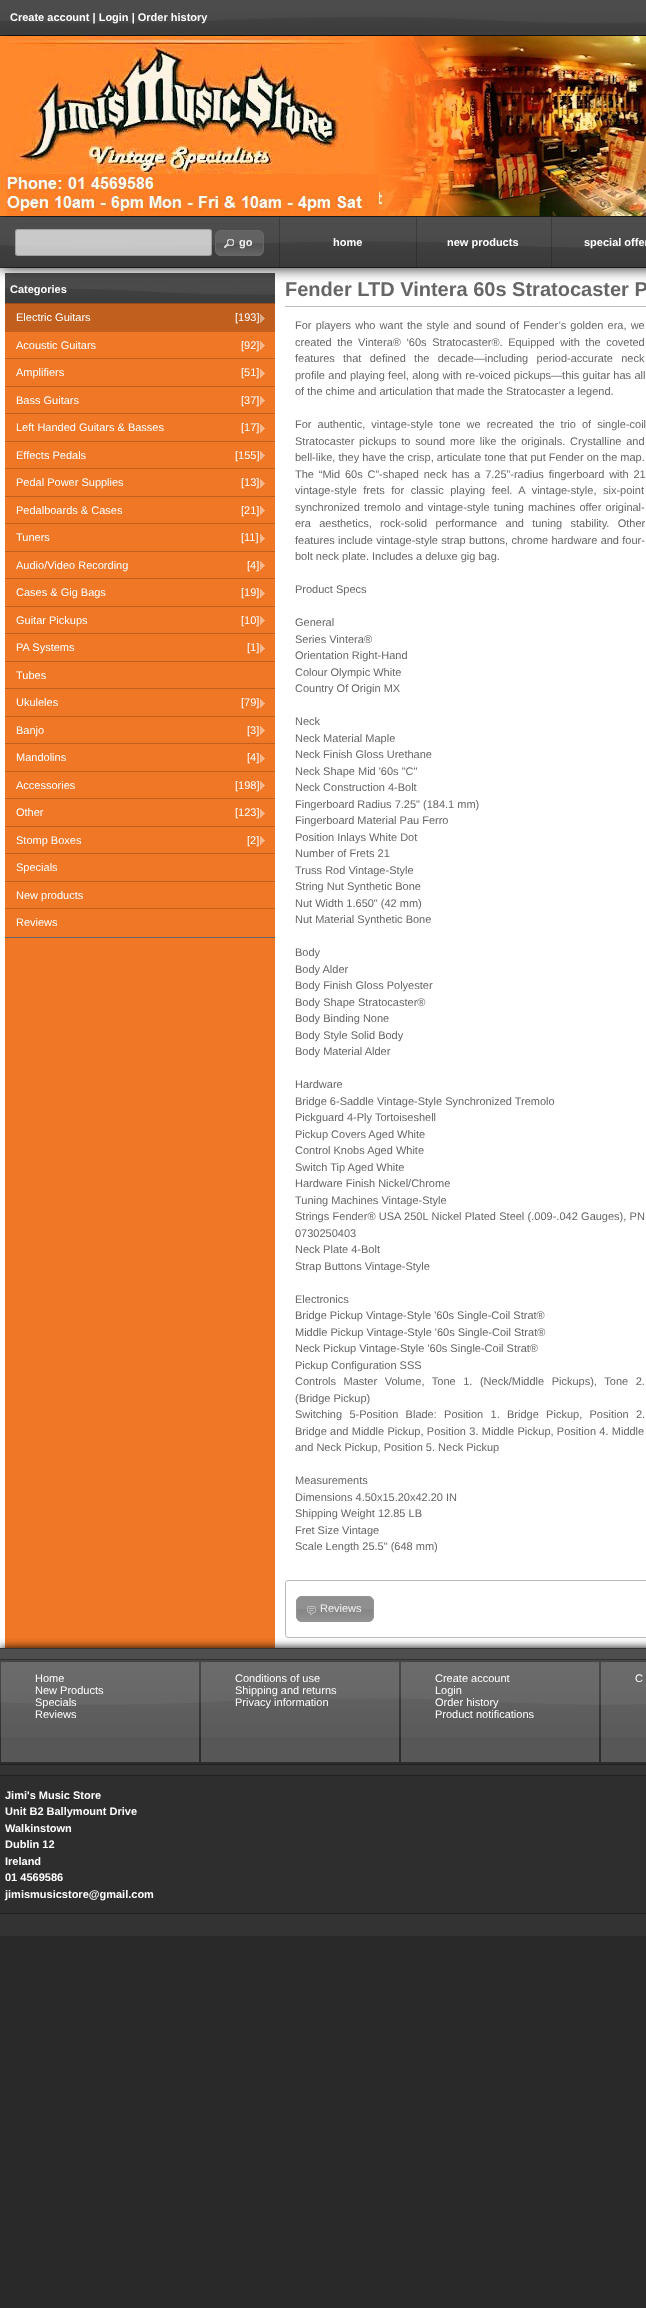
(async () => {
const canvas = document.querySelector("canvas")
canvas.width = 646
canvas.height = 2308
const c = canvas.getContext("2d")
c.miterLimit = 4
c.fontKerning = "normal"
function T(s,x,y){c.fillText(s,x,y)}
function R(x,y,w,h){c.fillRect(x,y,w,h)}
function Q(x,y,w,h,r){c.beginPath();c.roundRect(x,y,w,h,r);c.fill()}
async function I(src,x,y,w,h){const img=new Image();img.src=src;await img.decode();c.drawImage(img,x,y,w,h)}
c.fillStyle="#292929"
R(0,0,646,2308)
c.fillStyle="#333"
R(0,35,646,1)
c.fillStyle="#000"
c.filter="blur(5px)"
c.beginPath()
c.rect(0,3,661,35)
c.fill()
c.filter="none"
await I("1.png",0,0,646,35)
c.font="bold 11px Liberation Sans"
c.fillStyle="#fff"
T("Create account | Login | Order history",10,21)
c.fillStyle="#333"
R(0,216,646,1)
R(0,267,646,1)
c.fillStyle="#fff"
R(0,268,646,1380)
await I("6.png",5,273,270,30)
c.fillStyle="#000"
c.filter="blur(7.5px)"
c.beginPath()
c.rect(0,217,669,50)
c.fill()
c.filter="none"
await I("2.png",0,36,646,180)
await I("3.png",0,217,646,50)
c.fillStyle="#ffffffb3"
Q(15,229,197,27,3)
c.beginPath()
c.roundRect(15.5,229.5,196,26,2.5)
c.strokeStyle="#00000033"
c.stroke()
await I("4.png",215,230,49,26)
c.beginPath()
c.roundRect(215.5,230.5,48,25,5.5)
c.strokeStyle="#666"
c.stroke()
await I("5.png",224,239,10,9)
c.fillStyle="#f3f3f3"
T("go",239,246)
c.fillStyle="#00000033"
R(416,217,1,50)
R(279,217,1,50)
c.fillStyle="#fff"
T("home",333,246)
c.fillStyle="#00000033"
R(551,217,1,50)
c.fillStyle="#fff"
T("new products",447,246)
T("special offer",584,246)
c.fillStyle="#f07726"
R(5,938,270,710)
c.fillStyle="#fff"
T("Categories",10,293)
c.fillStyle="#f07726"
R(5,359,270,578)
c.fillStyle="#666"
R(5,937,270,1)
c.fillStyle="#c05f1e"
R(5,304,270,28)
c.fillStyle="#9a4c18"
R(5,303,270,1)
c.font="11px Liberation Sans"
c.fillStyle="#fff"
T("Electric Guitars",16,321)
T("[193]",235,321)
await I("7.png",260,314,5,9)
c.fillStyle="#f07726"
R(5,332,270,26)
c.fillStyle="#fff"
T("Acoustic Guitars",16,349)
T("[92]",241,349)
await I("8.png",260,341,5,9)
c.fillStyle="#c05f1e"
R(5,358,270,1)
c.fillStyle="#fff"
T("Amplifiers",16,376)
T("[51]",241,376)
await I("8.png",260,369,5,9)
c.fillStyle="#c05f1e"
R(5,386,270,1)
c.fillStyle="#fff"
T("Bass Guitars",16,404)
T("[37]",241,404)
await I("8.png",260,396,5,9)
c.fillStyle="#c05f1e"
R(5,413,270,1)
c.fillStyle="#fff"
T("Left Handed Guitars & Basses",16,431)
T("[17]",241,431)
await I("8.png",260,424,5,9)
c.fillStyle="#c05f1e"
R(5,441,270,1)
c.fillStyle="#fff"
T("Effects Pedals",16,459)
T("[155]",235,459)
await I("8.png",260,451,5,9)
c.fillStyle="#c05f1e"
R(5,468,270,1)
c.fillStyle="#fff"
T("Pedal Power Supplies",16,486)
T("[13]",241,486)
await I("8.png",260,479,5,9)
c.fillStyle="#c05f1e"
R(5,496,270,1)
c.fillStyle="#fff"
T("Pedalboards & Cases",16,514)
T("[21]",241,514)
await I("8.png",260,506,5,9)
c.fillStyle="#c05f1e"
R(5,523,270,1)
c.fillStyle="#fff"
T("Tuners",16,541)
T("[11]",241,541)
await I("8.png",260,534,5,9)
c.fillStyle="#c05f1e"
R(5,551,270,1)
c.fillStyle="#fff"
T("Audio/Video Recording",16,569)
T("[4]",247,569)
await I("8.png",260,561,5,9)
c.fillStyle="#c05f1e"
R(5,578,270,1)
c.fillStyle="#fff"
T("Cases & Gig Bags",16,596)
T("[19]",241,596)
await I("8.png",260,589,5,9)
c.fillStyle="#c05f1e"
R(5,606,270,1)
c.fillStyle="#fff"
T("Guitar Pickups",16,624)
T("[10]",241,624)
await I("8.png",260,616,5,9)
c.fillStyle="#c05f1e"
R(5,633,270,1)
c.fillStyle="#fff"
T("PA Systems",16,651)
T("[1]",247,651)
await I("8.png",260,644,5,9)
c.fillStyle="#c05f1e"
R(5,661,270,1)
c.fillStyle="#fff"
T("Tubes",16,679)
c.fillStyle="#c05f1e"
R(5,688,270,1)
c.fillStyle="#fff"
T("Ukuleles",16,706)
T("[79]",241,706)
await I("8.png",260,699,5,9)
c.fillStyle="#c05f1e"
R(5,716,270,1)
c.fillStyle="#fff"
T("Banjo",16,734)
T("[3]",247,734)
await I("8.png",260,726,5,9)
c.fillStyle="#c05f1e"
R(5,743,270,1)
c.fillStyle="#fff"
T("Mandolins",16,761)
T("[4]",247,761)
await I("8.png",260,754,5,9)
c.fillStyle="#c05f1e"
R(5,771,270,1)
c.fillStyle="#fff"
T("Accessories",16,789)
T("[198]",235,789)
await I("8.png",260,781,5,9)
c.fillStyle="#c05f1e"
R(5,798,270,1)
c.fillStyle="#fff"
T("Other",16,816)
T("[123]",235,816)
await I("8.png",260,809,5,9)
c.fillStyle="#c05f1e"
R(5,826,270,1)
c.fillStyle="#fff"
T("Stomp Boxes",16,844)
T("[2]",247,844)
await I("8.png",260,836,5,9)
c.fillStyle="#c05f1e"
R(5,853,270,1)
c.fillStyle="#fff"
T("Specials",16,871)
c.fillStyle="#c05f1e"
R(5,881,270,1)
c.fillStyle="#fff"
T("New products",16,899)
c.fillStyle="#c05f1e"
R(5,908,270,1)
c.fillStyle="#fff"
T("Reviews",16,926)
c.fillStyle="#bbb"
R(285,306,361,1)
c.font="bold 20px Liberation Sans"
c.fillStyle="#666"
T("Fender LTD Vintera 60s Stratocaster P",285,296)
c.wordSpacing="1.1px"
c.font="11px Liberation Sans"
T("For players who want the style and sound of Fender’s golden era, we",295,329)
c.wordSpacing="2.5px"
T("created the Vintera® ‘60s Stratocaster®. Equipped with the coveted",295,346)
c.wordSpacing="5.25px"
T("features that defined the decade—including period-accurate neck",295,362)
c.wordSpacing="0.25px"
T("profile and playing feel, along with re-voiced pickups—this guitar has all",295,379)
c.wordSpacing="0px"
T("of the chime and articulation that made the Stratocaster a legend.",295,395)
c.wordSpacing="3px"
T("For authentic, vintage-style tone we recreated the trio of single-coil",295,428)
c.wordSpacing="1.75px"
T("Stratocaster pickups to sound more like the originals. Crystalline and",295,445)
c.wordSpacing="0px"
T("bell-like, they have the crisp, articulate tone that put Fender on the map.",295,461)
c.wordSpacing="1.75px"
T("The “Mid 60s C”-shaped neck has a 7.25”-radius fingerboard with 21",295,478)
c.wordSpacing="3.5px"
T("vintage-style frets for classic playing feel. A vintage-style, six-point",295,494)
c.wordSpacing="1.25px"
T("synchronized tremolo and vintage-style tuning machines offer original-",295,511)
c.wordSpacing="5.25px"
T("era aesthetics, rock-solid performance and tuning stability. Other",295,527)
c.wordSpacing="0.25px"
T("features include vintage-style strap buttons, chrome hardware and four-",295,544)
c.wordSpacing="0px"
T("bolt neck plate. Includes a deluxe gig bag.",295,560)
T("Product Specs",295,593)
T("General",295,626)
T("Series Vintera®",295,643)
T("Orientation Right-Hand",295,659)
T("Colour Olympic White",295,676)
T("Country Of Origin MX",295,692)
T("Neck",295,725)
T("Neck Material Maple",295,742)
T("Neck Finish Gloss Urethane",295,758)
T("Neck Shape Mid '60s \"C\"",295,775)
T("Neck Construction 4-Bolt",295,791)
T("Fingerboard Radius 7.25\" (184.1 mm)",295,808)
T("Fingerboard Material Pau Ferro",295,824)
T("Position Inlays White Dot",295,841)
T("Number of Frets 21",295,857)
T("Truss Rod Vintage-Style",295,874)
T("String Nut Synthetic Bone",295,890)
T("Nut Width 1.650\" (42 mm)",295,907)
T("Nut Material Synthetic Bone",295,923)
T("Body",295,956)
T("Body Alder",295,973)
T("Body Finish Gloss Polyester",295,989)
T("Body Shape Stratocaster®",295,1006)
T("Body Binding None",295,1022)
T("Body Style Solid Body",295,1039)
T("Body Material Alder",295,1055)
T("Hardware",295,1088)
T("Bridge 6-Saddle Vintage-Style Synchronized Tremolo",295,1105)
T("Pickguard 4-Ply Tortoiseshell",295,1121)
T("Pickup Covers Aged White",295,1138)
T("Control Knobs Aged White",295,1154)
T("Switch Tip Aged White",295,1171)
T("Hardware Finish Nickel/Chrome",295,1187)
T("Tuning Machines Vintage-Style",295,1204)
c.wordSpacing="0.25px"
T("Strings Fender® USA 250L Nickel Plated Steel (.009-.042 Gauges), PN",295,1220)
c.wordSpacing="0px"
T("0730250403",295,1237)
T("Neck Plate 4-Bolt",295,1253)
T("Strap Buttons Vintage-Style",295,1270)
T("Electronics",295,1303)
T("Bridge Pickup Vintage-Style '60s Single-Coil Strat®",295,1319)
T("Middle Pickup Vintage-Style '60s Single-Coil Strat®",295,1336)
T("Neck Pickup Vintage-Style '60s Single-Coil Strat®",295,1352)
T("Pickup Configuration SSS",295,1369)
c.wordSpacing="4.5px"
T("Controls Master Volume, Tone 1. (Neck/Middle Pickups), Tone 2.",295,1385)
c.wordSpacing="0px"
T("(Bridge Pickup)",295,1402)
c.wordSpacing="4.25px"
T("Switching 5-Position Blade: Position 1. Bridge Pickup, Position 2.",295,1418)
c.wordSpacing="0.25px"
T("Bridge and Middle Pickup, Position 3. Middle Pickup, Position 4. Middle",295,1435)
c.wordSpacing="0px"
T("and Neck Pickup, Position 5. Neck Pickup",295,1451)
T("Measurements",295,1484)
T("Dimensions 4.50x15.20x42.20 IN",295,1501)
T("Shipping Weight 12.85 LB",295,1517)
T("Fret Size Vintage",295,1534)
T("Scale Length 25.5\" (648 mm)",295,1550)
c.beginPath()
c.roundRect(285.5,1580.5,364,57,2.5)
c.strokeStyle="#bbb"
c.stroke()
await I("9.png",296,1596,78,26)
c.beginPath()
c.roundRect(296.5,1596.5,77,25,5.5)
c.strokeStyle="#949494"
c.stroke()
await I("10.png",307,1606,9,9)
c.fillStyle="#f3f3f3"
T("Reviews",320,1612)
c.save()
c.beginPath()
c.rect(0,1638,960,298)
c.clip()
c.fillStyle="#000"
c.filter="blur(5px)"
c.beginPath()
c.rect(0,1648,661,288)
c.fill()
c.filter="none"
c.restore()
c.fillStyle="#333"
R(0,1648,646,288)
await I("11.png",0,1649,646,88)
c.fillStyle="#0000001a"
R(0,1659,646,106)
c.strokeStyle="#0000004d"
c.strokeRect(-.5,1659.5,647,105)
c.fillStyle="#ffffff33"
R(1,1662,198,100)
c.fillStyle="#fff"
T("Home",35,1682)
T("New Products",35,1694)
T("Specials",35,1706)
T("Reviews",35,1718)
c.fillStyle="#ffffff33"
R(201,1662,198,100)
c.fillStyle="#fff"
T("Conditions of use",235,1682)
T("Shipping and returns",235,1694)
T("Privacy information",235,1706)
c.fillStyle="#ffffff33"
R(401,1662,198,100)
c.fillStyle="#fff"
T("Create account",435,1682)
T("Login",435,1694)
T("Order history",435,1706)
T("Product notifications",435,1718)
c.fillStyle="#ffffff33"
R(601,1662,45,100)
c.fillStyle="#fff"
T("C",635,1682)
c.fillStyle="#2e2e2e"
c.beginPath()
c.rect(-.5,1775.5,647,138)
c.fill()
c.strokeStyle="#202020"
c.stroke()
c.font="bold 11px Liberation Sans"
c.fillStyle="#fff"
T("Jimi's Music Store",5,1799)
T("Unit B2 Ballymount Drive",5,1815)
T("Walkinstown",5,1832)
T("Dublin 12",5,1848)
T("Ireland",5,1865)
T("01 4569586",5,1881)
T("jimismusicstore@gmail.com",5,1898)
})()
